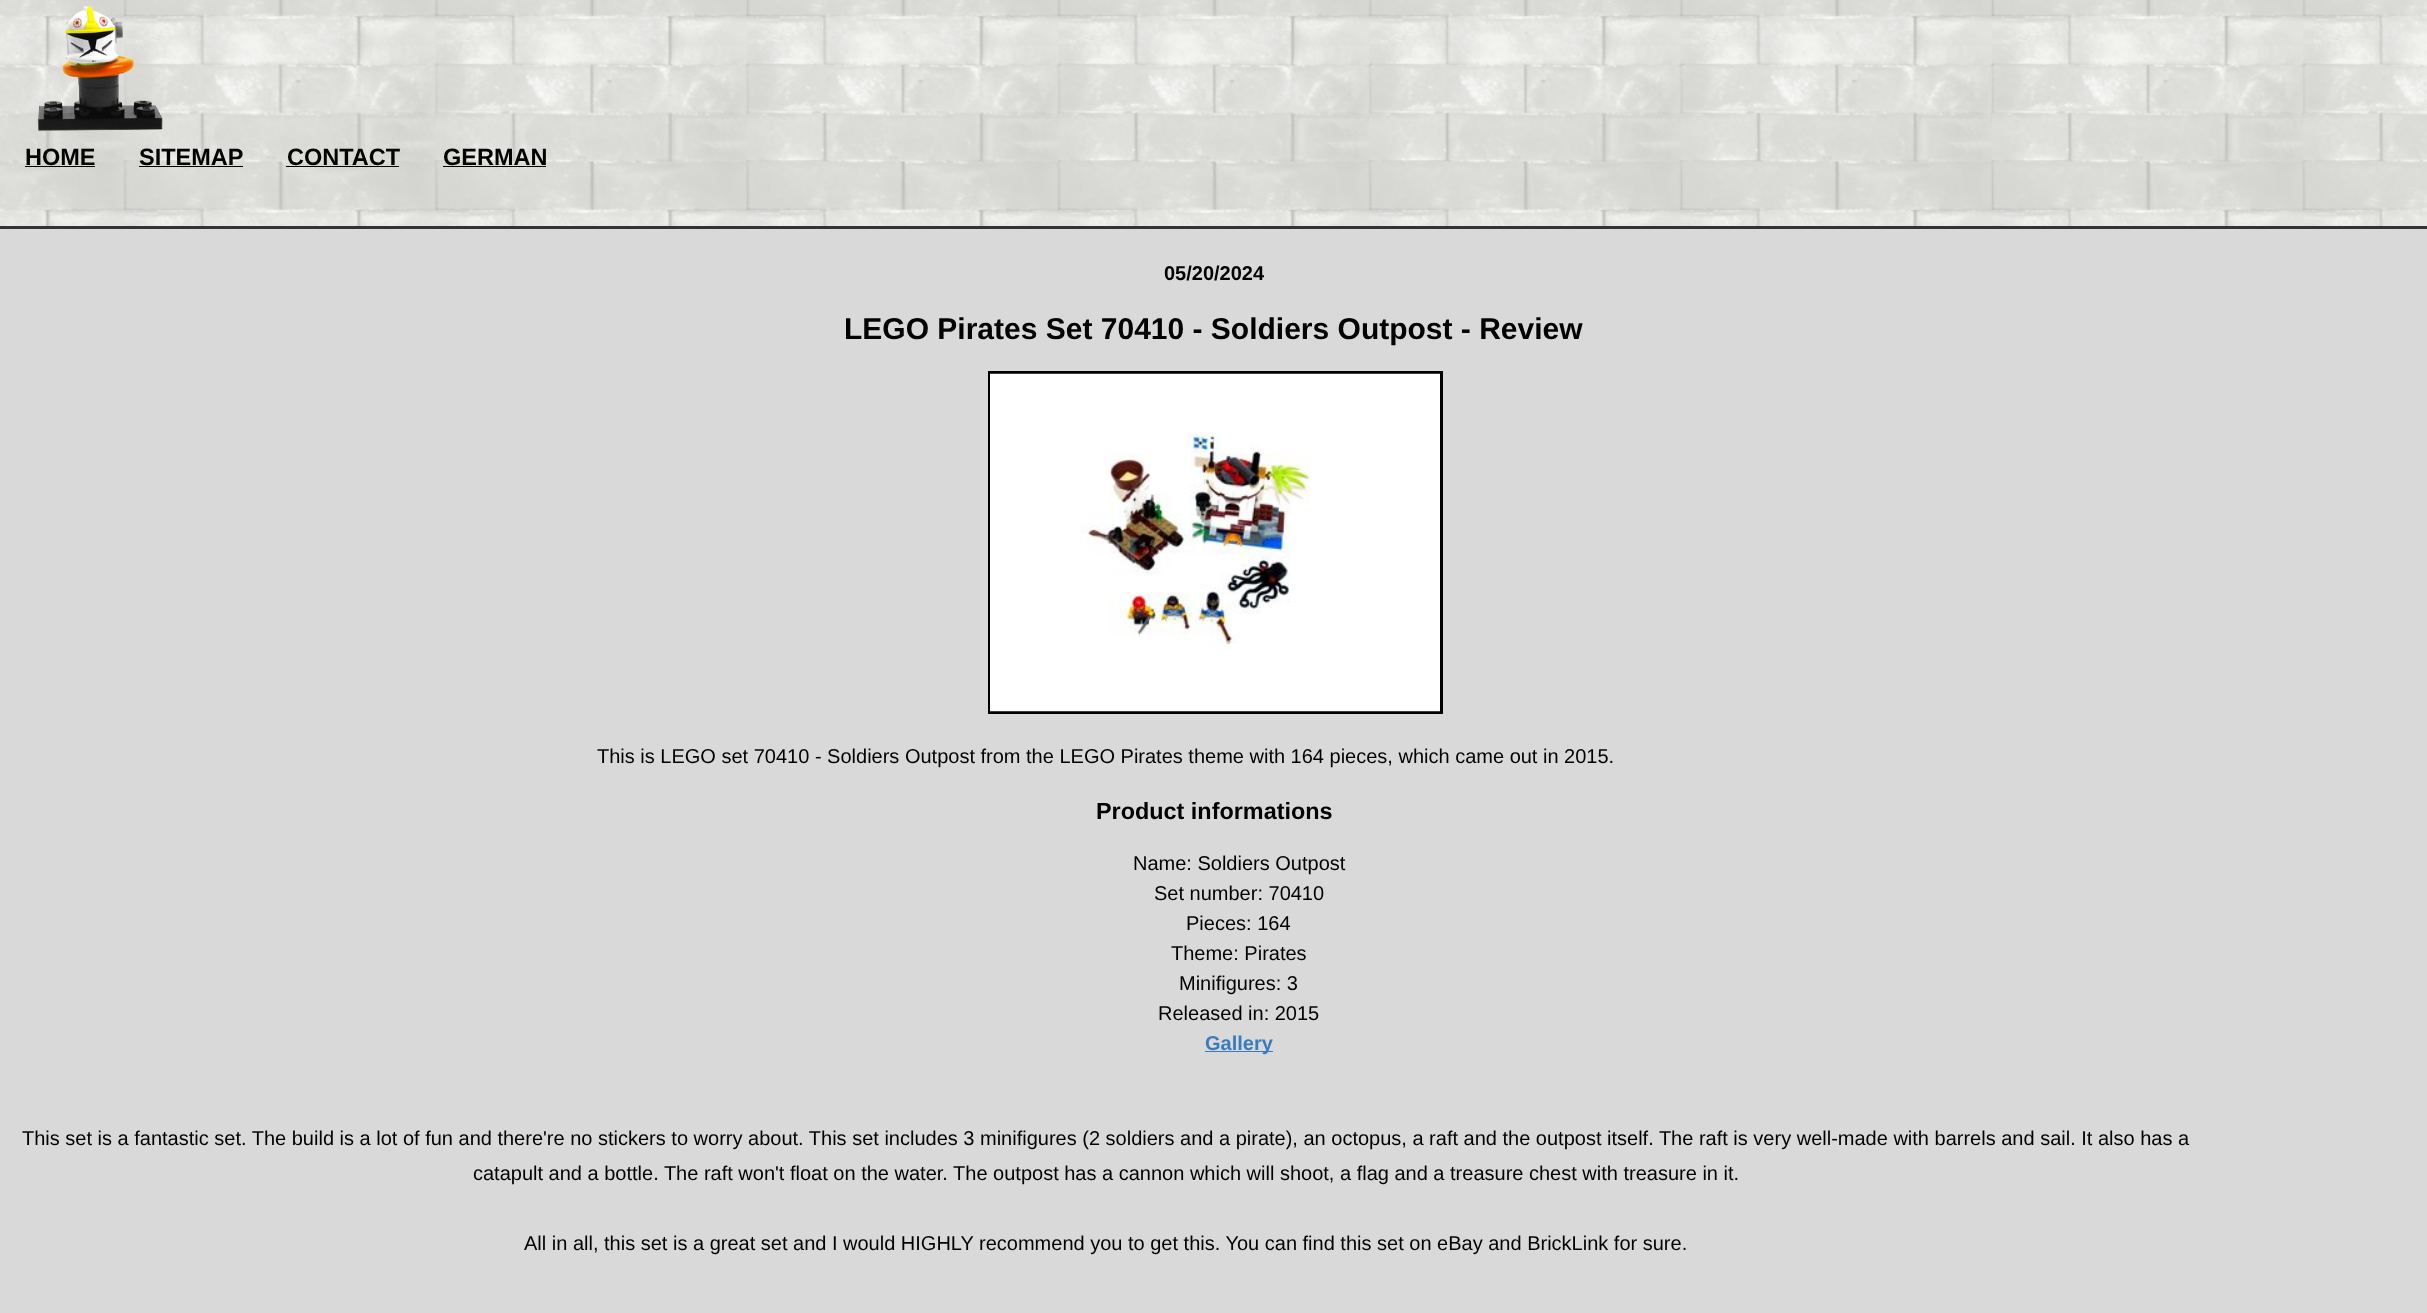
(async () => {
const canvas = document.querySelector("canvas")
canvas.width = 2427
canvas.height = 1313
const c = canvas.getContext("2d")
c.miterLimit = 4
c.fontKerning = "normal"
function T(s,x,y){c.fillText(s,x,y)}
function R(x,y,w,h){c.fillRect(x,y,w,h)}
async function I(src,x,y,w,h){const img=new Image();img.src=src;await img.decode();c.drawImage(img,x,y,w,h)}
c.fillStyle="#d9d9d9"
R(0,0,2427,1313)
await I("1.png",0,0,2427,226)
c.fillStyle="#333"
R(0,226,2427,3)
await I("2.png",37,6,126,126)
c.font="bold 23.5px Liberation Sans"
c.fillStyle="#000"
T("HOME",25,165)
R(25,166,70,1)
T("SITEMAP",139,165)
R(139,166,104,1)
T("CONTACT",287,165)
R(286,166,113,1)
T("GERMAN",443,165)
R(443,166,103,1)
c.font="bold 20px Liberation Sans"
T("05/20/2024",1164,280)
c.font="bold 30px Liberation Sans"
T("LEGO Pirates Set 70410 - Soldiers Outpost - Review",844,339)
c.strokeStyle="#000"
c.lineWidth=3
c.strokeRect(989.5,372.5,452,340)
await I("3.png",990,373,450,339)
c.font="20px Liberation Sans"
T("This is LEGO set 70410 - Soldiers Outpost from the LEGO Pirates theme with 164 pieces, which came out in 2015.",597,763)
c.font="bold 23.4px Liberation Sans"
T("Product informations",1096,819)
c.font="20px Liberation Sans"
T("Name: Soldiers Outpost",1133,870)
T("Set number: 70410",1154,900)
T("Pieces: 164",1186,930)
T("Theme: Pirates",1171,960)
T("Minifigures: 3",1179,990)
T("Released in: 2015",1158,1020)
c.fillStyle="#387cbd"
R(1205,1051,68,1)
c.font="bold 20px Liberation Sans"
T("Gallery",1205,1050)
c.font="20px Liberation Sans"
c.fillStyle="#000"
T("This set is a fantastic set. The build is a lot of fun and there're no stickers to worry about. This set includes 3 minifigures (2 soldiers and a pirate), an octopus, a raft and the outpost itself. The raft is very well-made with barrels and sail. It also has a",22,1145)
T("catapult and a bottle. The raft won't float on the water. The outpost has a cannon which will shoot, a flag and a treasure chest with treasure in it.",473,1180)
T("All in all, this set is a great set and I would HIGHLY recommend you to get this. You can find this set on eBay and BrickLink for sure.",524,1250)
})()
